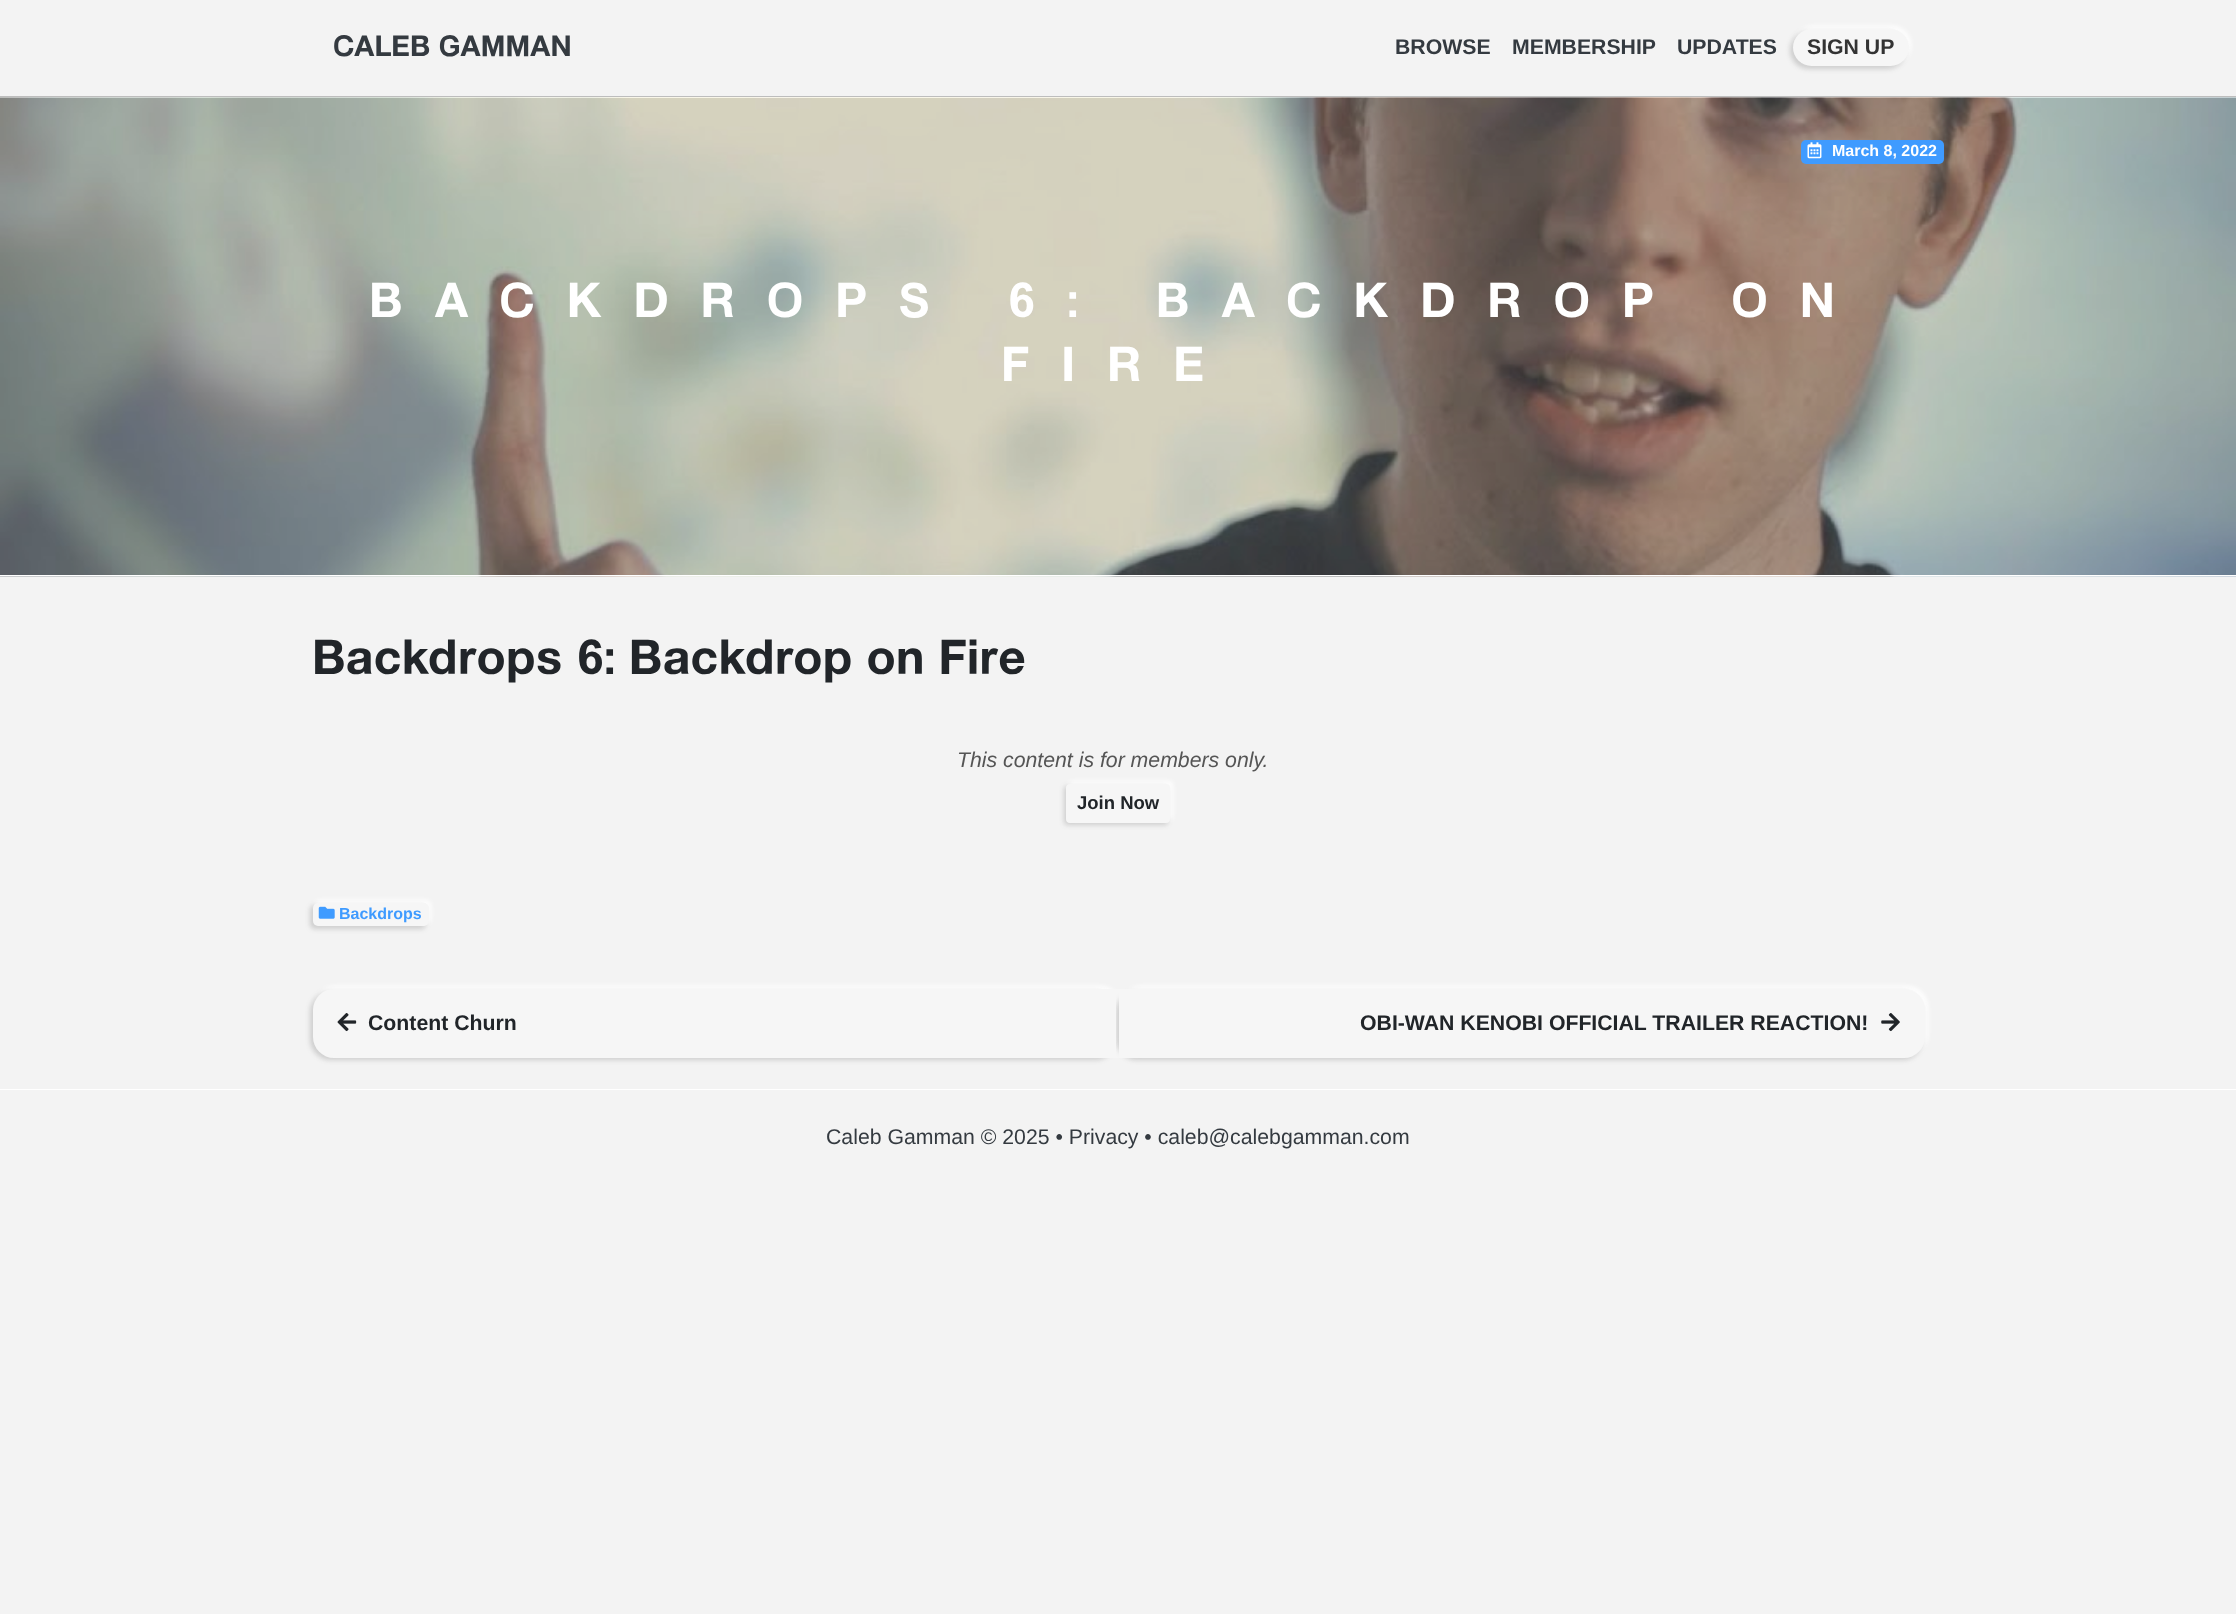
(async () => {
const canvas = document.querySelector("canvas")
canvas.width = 2236
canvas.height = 1614
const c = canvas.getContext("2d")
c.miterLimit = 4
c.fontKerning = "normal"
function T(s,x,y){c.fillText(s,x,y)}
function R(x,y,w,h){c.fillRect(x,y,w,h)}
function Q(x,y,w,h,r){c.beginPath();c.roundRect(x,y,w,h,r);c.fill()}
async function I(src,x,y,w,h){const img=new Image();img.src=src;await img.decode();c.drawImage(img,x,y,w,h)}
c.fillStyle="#f3f3f3"
R(0,0,2236,1614)
c.fillStyle="#bdbdbd"
R(0,96,2236,1)
c.font="bold 32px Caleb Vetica"
c.fillStyle="#343a40"
T("CALEB GAMMAN",333,56)
c.font="bold 21.25px Liberation Sans"
T("BROWSE",1395,54)
T("MEMBERSHIP",1512,54)
T("UPDATES",1677,54)
c.fillStyle="#fff"
c.filter="blur(2.5px)"
c.beginPath()
c.roundRect(1795,26,116,38,19)
c.fill()
c.filter="none"
c.fillStyle="#38383833"
c.filter="blur(2.5px)"
c.beginPath()
c.roundRect(1790,31,116,38,19)
c.fill()
c.filter="none"
c.fillStyle="#f6f6f6"
Q(1793,29,116,37,18.5)
c.fillStyle="#333"
T("SIGN UP",1807,54)
await I("1.png",0,97,2236,480)
c.fillStyle="#fff"
R(0,575,2236,1)
c.fillStyle="#3f9bff"
Q(1801,140,143,24,5)
await I("2.png",1807,142,15,17)
c.font="bold 16px Liberation Sans"
c.fillStyle="#fff"
T("March 8, 2022",1832,156)
c.letterSpacing="31.9px"
c.font="bold 53.1px Caleb Vetica"
T("BACKDROPS 6: BACKDROP ON",369,317)
T("FIRE",1001,381)
c.letterSpacing="0px"
c.fillStyle="#212529"
T("Backdrops 6: Backdrop on Fire",312,674)
c.font="italic 21.25px Liberation Sans"
c.fillStyle="#555"
T("This content is for members only.",957,767)
c.fillStyle="#fff"
c.filter="blur(2.5px)"
c.beginPath()
c.roundRect(1069,781,104,39,4)
c.fill()
c.filter="none"
c.fillStyle="#38383833"
c.filter="blur(2.5px)"
c.beginPath()
c.roundRect(1064,786,104,39,4)
c.fill()
c.filter="none"
c.fillStyle="#f6f6f6"
Q(1066,784,104,39,4)
c.font="bold 18.5px Liberation Sans"
c.fillStyle="#212529"
T("Join Now",1077,809)
c.fillStyle="#fff"
c.filter="blur(2.5px)"
c.beginPath()
c.roundRect(315,900,116,24,5)
c.fill()
c.filter="none"
c.fillStyle="#38383833"
c.filter="blur(2.5px)"
c.beginPath()
c.roundRect(310,905,116,24,5)
c.fill()
c.filter="none"
c.fillStyle="#f6f6f6"
Q(313,903,116,23,5)
await I("3.png",318,906,17,13)
c.font="bold 16px Liberation Sans"
c.fillStyle="#3f9bff"
T("Backdrops",339,919)
c.fillStyle="#fff"
c.filter="blur(2.5px)"
c.beginPath()
c.roundRect(315,986,806,69,21)
c.fill()
c.filter="none"
c.fillStyle="#38383833"
c.filter="blur(2.5px)"
c.beginPath()
c.roundRect(310,991,806,69,21)
c.fill()
c.filter="none"
c.fillStyle="#f6f6f6"
c.beginPath()
c.roundRect(313,989,806,69,[21,0,0,21])
c.fill()
await I("4.png",337,1013,20,19)
c.font="bold 21.25px Liberation Sans"
c.fillStyle="#212529"
T("Content Churn",368,1030)
c.fillStyle="#fff"
c.filter="blur(2.5px)"
c.beginPath()
c.roundRect(1121,986,807,69,21)
c.fill()
c.filter="none"
c.save()
c.beginPath()
c.rect(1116,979,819,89)
c.clip()
c.fillStyle="#38383833"
c.filter="blur(2.5px)"
c.beginPath()
c.roundRect(1116,991,807,69,21)
c.fill()
c.filter="none"
c.restore()
c.fillStyle="#f6f6f6"
c.beginPath()
c.roundRect(1119,989,806,69,[0,21,21,0])
c.fill()
c.fillStyle="#212529"
T("OBI-WAN KENOBI OFFICIAL TRAILER REACTION!",1360,1030)
await I("5.png",1881,1013,19,19)
c.fillStyle="#fff"
R(0,1089,2236,1)
c.font="21.25px Liberation Sans"
c.fillStyle="#343a40"
T("Caleb Gamman © 2025 • Privacy • caleb@calebgamman.com",826,1144)
})()
